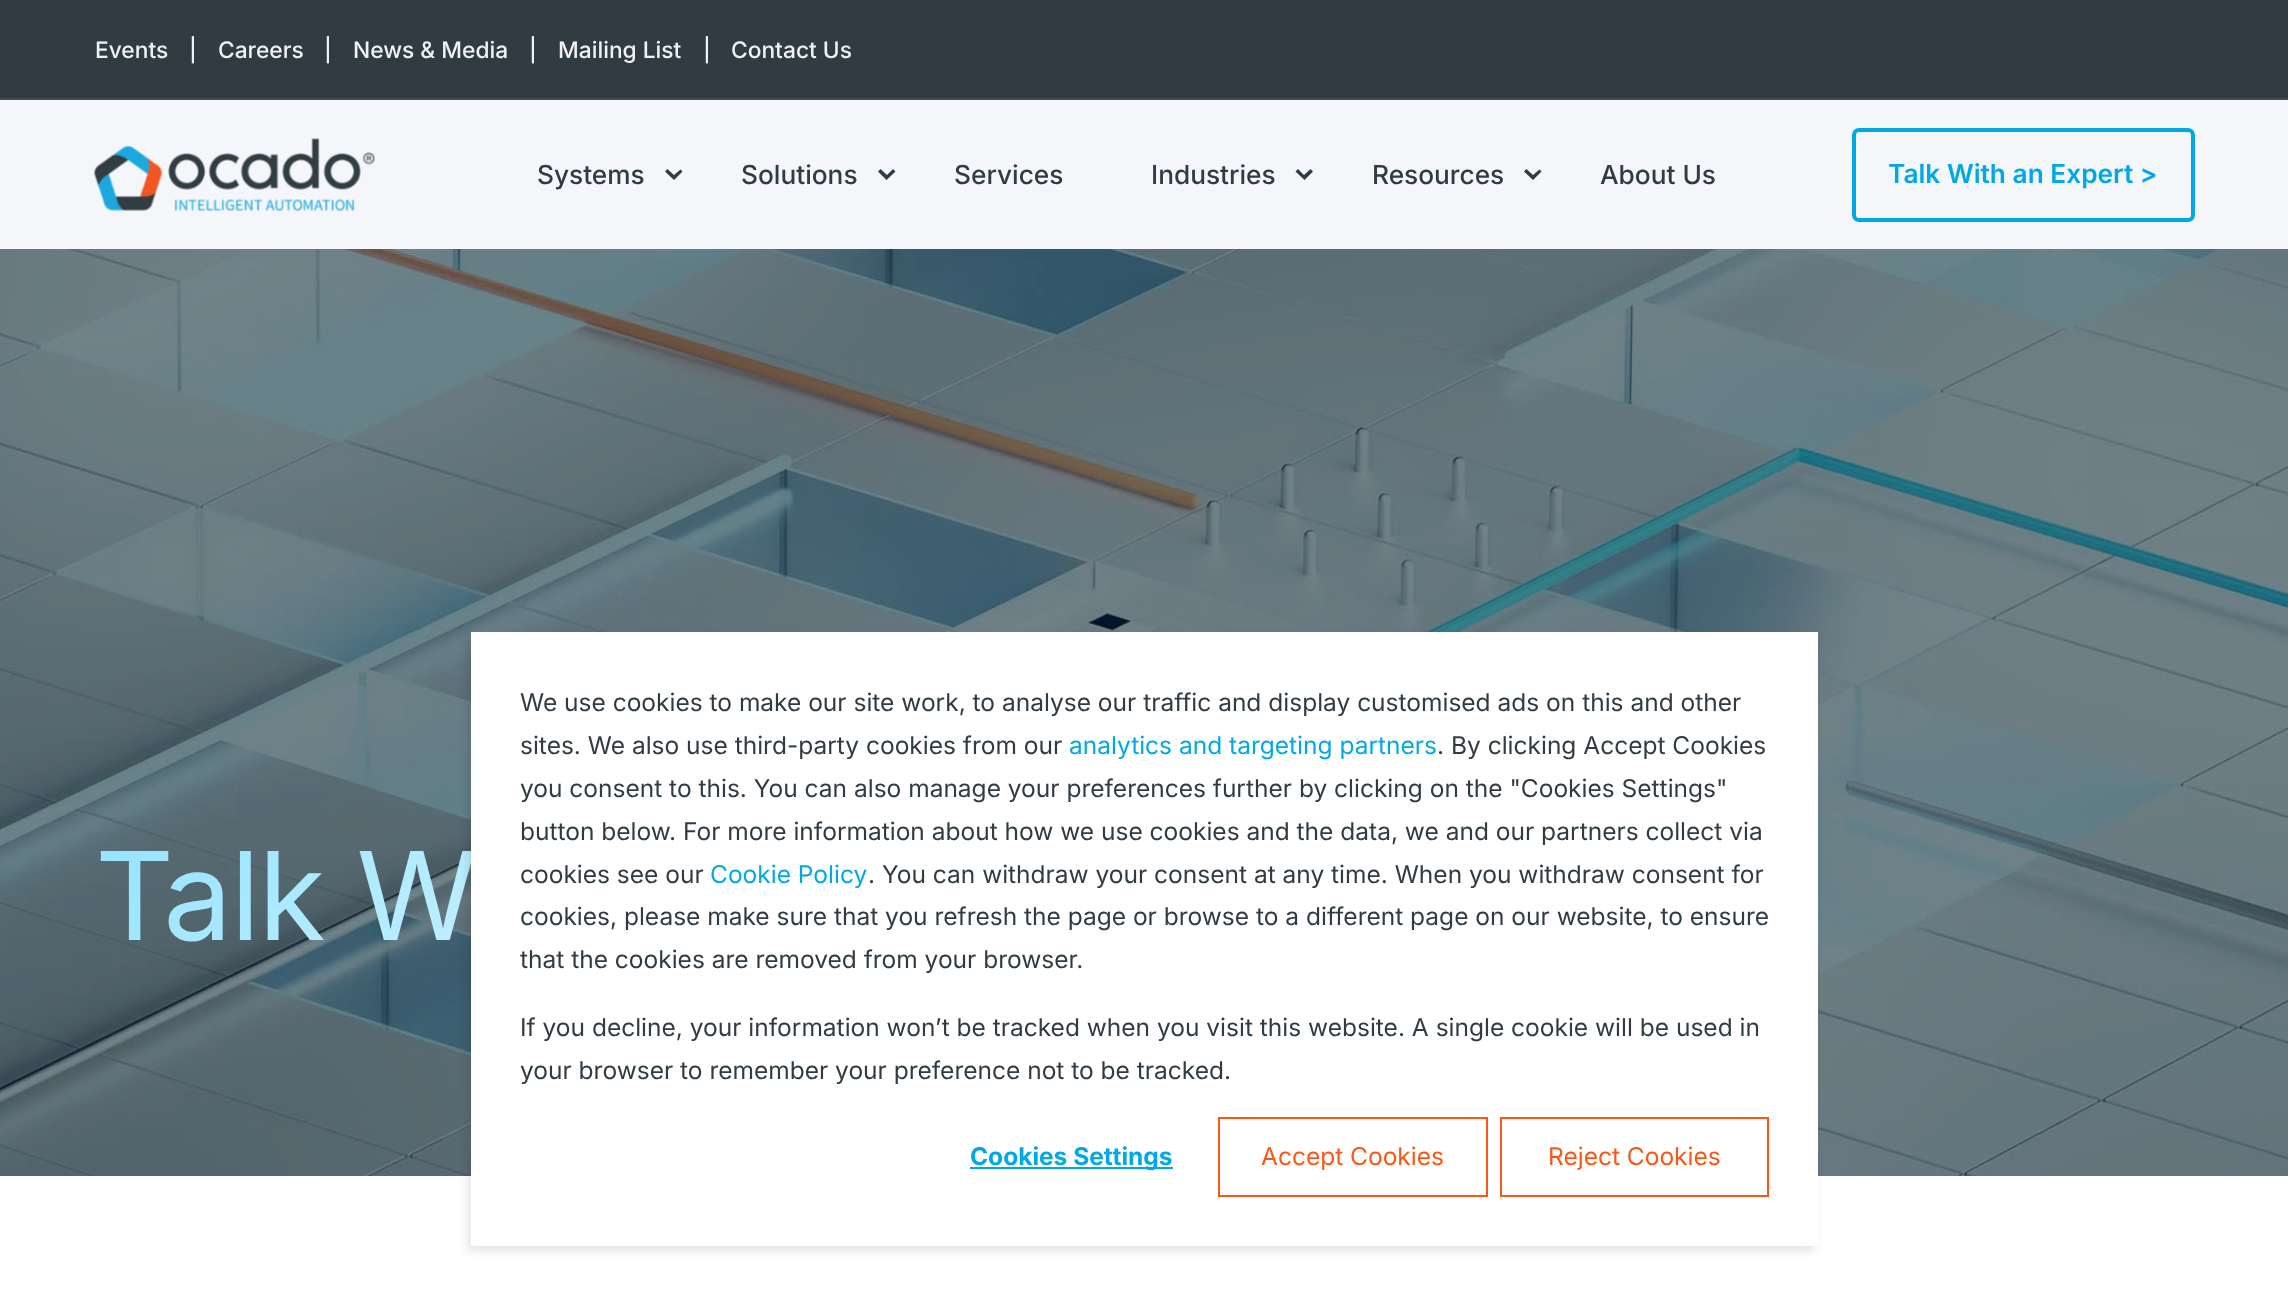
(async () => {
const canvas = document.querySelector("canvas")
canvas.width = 2288
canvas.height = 1301
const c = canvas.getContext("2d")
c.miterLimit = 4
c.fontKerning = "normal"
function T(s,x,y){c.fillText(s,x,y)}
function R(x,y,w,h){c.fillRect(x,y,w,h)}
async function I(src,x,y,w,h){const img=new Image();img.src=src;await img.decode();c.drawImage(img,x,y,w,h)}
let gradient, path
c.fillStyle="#fff"
R(0,0,2288,1301)
c.fillStyle="#303c42"
R(0,0,2288,98)
c.fillStyle="#444f54"
R(0,98,2288,2)
c.font="500 22.75px Inter"
c.fillStyle="#f0f1f2"
T("Events",95,58)
T("|",189,58)
T("Careers",218,58)
T("|",324,58)
T("News & Media",353,58)
T("|",529,58)
T("Mailing List",558,58)
T("|",703,58)
T("Contact Us",731,58)
c.fillStyle="#f4f6fa"
R(0,100,2288,149)
await I("1.png",94,138,281,74)
c.font="500 26.25px Inter"
c.fillStyle="#303c42"
T("Systems",537,184)
path = new Path2D("M682.5 171.5l-2-2l-6.5 5.5l-6.5-6l-2.5 2.5l9 8.5z")
c.fill(path)
T("Solutions",741,184)
path = new Path2D("M895.5 171.5l-2.5-2.5l-6 6l-6.5-6l-2.5 2.5l8.5 8.5z")
c.fill(path)
T("Services",954,184)
T("Industries",1151,184)
path = new Path2D("M1313 171.5l-2.5-2.5l-6.5 6l-6-6l-2.5 2.5l9 8.5z")
c.fill(path)
T("Resources",1372,184)
path = new Path2D("M1541.5 171.5l-2-2l-6.5 5.5l-6.5-6l-2.5 2.5l9 8.5z")
c.fill(path)
T("About Us",1600,184)
c.beginPath()
c.roundRect(1854,130,339,90,5)
c.strokeStyle="#00a9e6"
c.lineWidth=4
c.stroke()
c.font="600 26.25px Inter"
c.fillStyle="#00a9e6"
T("Talk With an Expert >",1888,183)
await I("2.png",0,249,2288,927)
c.letterSpacing="-1.75px"
c.font="122.5px Inter"
gradient = c.createLinearGradient(331,590,943,1202)
gradient.addColorStop(0,"#94e3ff")
gradient.addColorStop(1,"#fff")
c.fillStyle = gradient
T("Talk W",95,940)
c.fillStyle="#0000001a"
c.filter="blur(4.5px)"
c.beginPath()
c.rect(467,637,1348,614)
c.fill()
c.filter="none"
c.fillStyle="#fff"
R(471,632,1347,614)
c.letterSpacing="0px"
c.font="24.5px Inter"
c.fillStyle="#303c42"
T("We use cookies to make our site work, to analyse our traffic and display customised ads on this and other",520,711)
T("sites. We also use third-party cookies from our",520,754)
c.fillStyle="#00a9e6"
T("analytics and targeting partners",1069,754)
c.fillStyle="#303c42"
T(". By clicking Accept Cookies",1437,754)
T("you consent to this. You can also manage your preferences further by clicking on the \"Cookies Settings\"",520,797)
T("button below. For more information about how we use cookies and the data, we and our partners collect via",520,840)
T("cookies see our",520,883)
c.fillStyle="#00a9e6"
T("Cookie Policy",710,883)
c.fillStyle="#303c42"
T(". You can withdraw your consent at any time. When you withdraw consent for",868,883)
T("cookies, please make sure that you refresh the page or browse to a different page on our website, to ensure",520,925)
T("that the cookies are removed from your browser.",520,968)
T("If you decline, your information won’t be tracked when you visit this website. A single cookie will be used in",520,1036)
T("your browser to remember your preference not to be tracked.",520,1079)
c.fillStyle="#00a9e6"
R(970,1167,203,2)
c.font="bold 24.5px Inter"
T("Cookies Settings",970,1165)
c.strokeStyle="#fb5613"
c.lineWidth=2
c.strokeRect(1219,1118,268,78)
c.font="24.5px Inter"
c.fillStyle="#fb5613"
T("Accept Cookies",1261,1165)
c.strokeRect(1501,1118,267,78)
T("Reject Cookies",1548,1165)
})()
